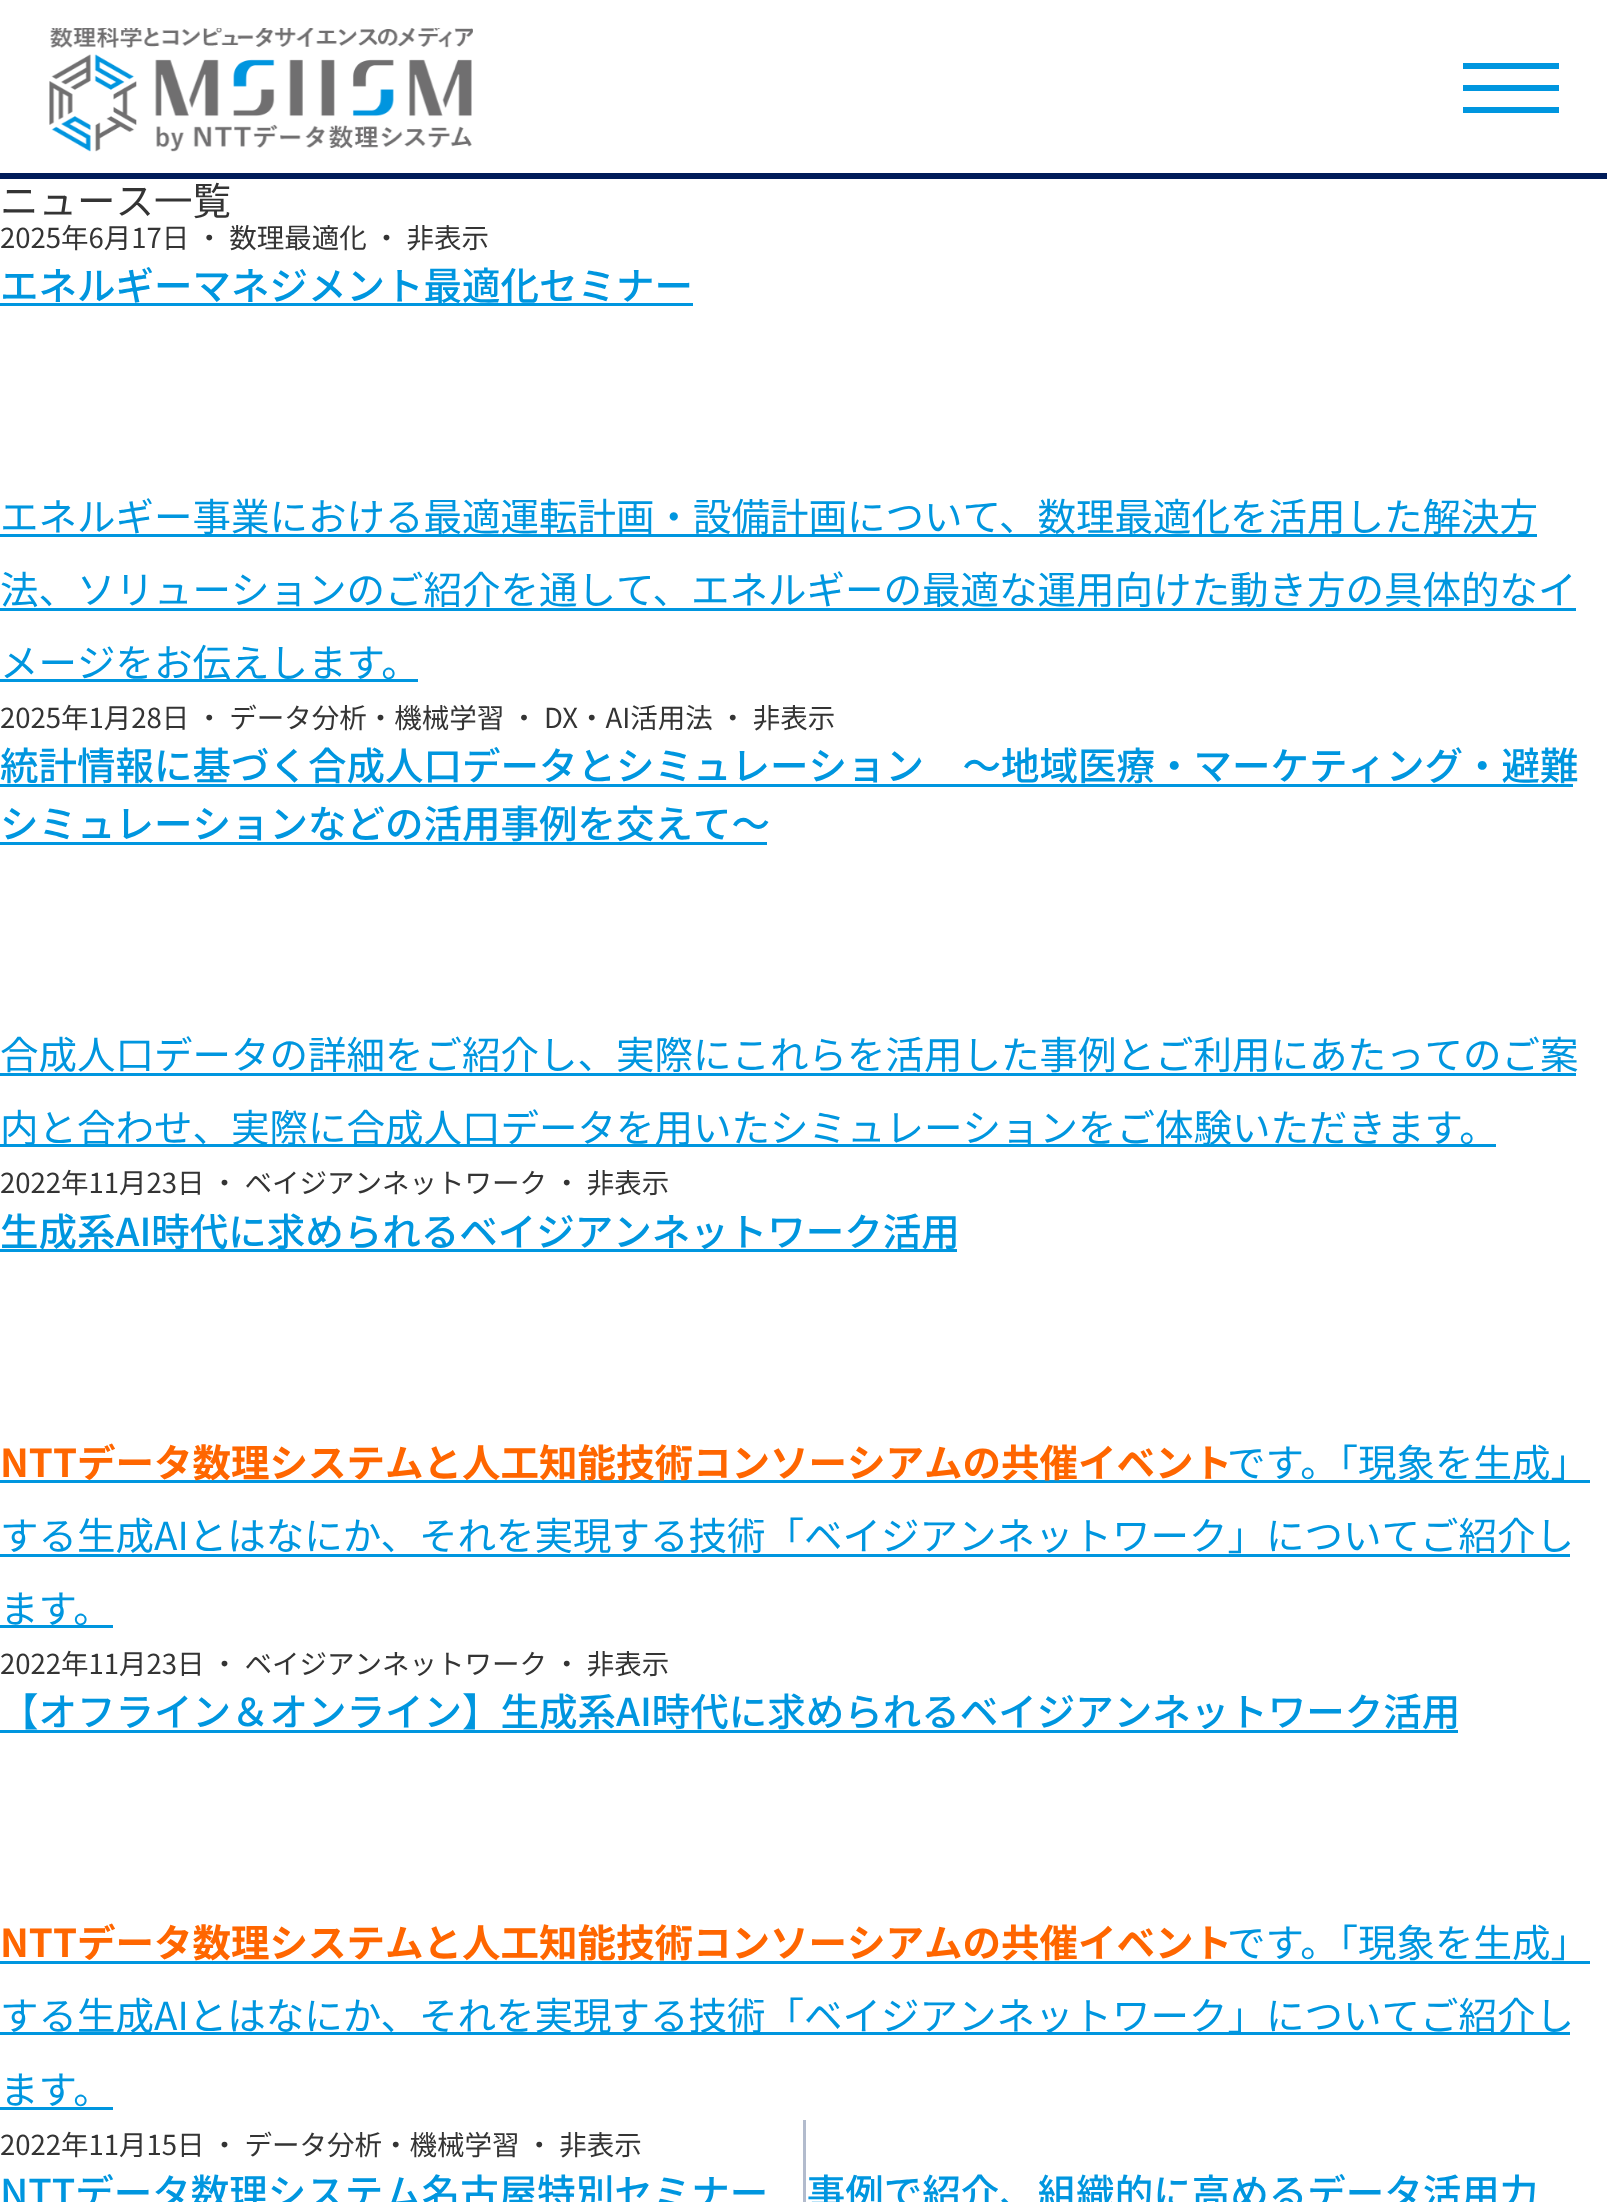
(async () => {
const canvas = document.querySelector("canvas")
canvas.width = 1607
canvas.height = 2202
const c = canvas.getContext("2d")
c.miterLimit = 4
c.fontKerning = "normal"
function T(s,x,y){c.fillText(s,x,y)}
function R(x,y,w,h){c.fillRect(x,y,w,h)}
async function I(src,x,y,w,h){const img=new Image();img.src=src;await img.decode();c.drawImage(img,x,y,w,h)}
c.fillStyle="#fff"
R(0,0,1607,2202)
c.fillStyle="#001c59"
R(0,173,1607,6)
await I("1.png",49,28,424,124)
c.fillStyle="#0096df"
R(1463,85,96,6)
R(1463,63,96,6)
R(1463,107,96,6)
c.font="38.5px Noto Sans JP"
c.fillStyle="#343434"
T("ニュース一覧",0,215)
c.font="27.5px Noto Sans JP"
T("2025年6月17日 ・ 数理最適化 ・ 非表示",0,248)
c.fillStyle="#0096df"
R(0,303,693,3)
c.font="500 38.5px Noto Sans JP"
T("エネルギーマネジメント最適化セミナー",0,300)
T("NTTデータ数理システム名古屋特別セミナー　事例で紹介、組織的に高めるデータ活用力",0,2207)
c.fillStyle="#b2bbcd"
R(803,2120,3,82)
c.fillStyle="#0096df"
R(0,534,1537,3)
c.font="38.5px Noto Sans JP"
T("エネルギー事業における最適運転計画・設備計画について、数理最適化を活用した解決方",0,531)
T("法、ソリューションのご紹介を通して、エネルギーの最適な運用向けた動き方の具体的なイ",0,604)
R(0,608,1576,3)
R(0,679,418,3)
T("メージをお伝えします。",0,677)
c.font="27.5px Noto Sans JP"
c.fillStyle="#343434"
T("2025年1月28日 ・ データ分析・機械学習 ・ DX・AI活用法 ・ 非表示",0,728)
c.font="500 38.5px Noto Sans JP"
c.fillStyle="#0096df"
T("統計情報に基づく合成人口データとシミュレーション　～地域医療・マーケティング・避難",0,780)
R(0,784,1573,3)
T("シミュレーションなどの活用事例を交えて～",0,838)
R(0,842,767,3)
c.font="38.5px Noto Sans JP"
T("合成人口データの詳細をご紹介し、実際にこれらを活用した事例とご利用にあたってのご案",0,1069)
R(0,1073,1576,3)
R(0,1144,1496,3)
T("内と合わせ、実際に合成人口データを用いたシミュレーションをご体験いただきます。",0,1142)
c.font="27.5px Noto Sans JP"
c.fillStyle="#343434"
T("2022年11月23日 ・ ベイジアンネットワーク ・ 非表示",0,1193)
c.fillStyle="#0096df"
R(0,1249,957,3)
c.font="500 38.5px Noto Sans JP"
T("生成系AI時代に求められるベイジアンネットワーク活用",0,1246)
R(0,1480,1590,3)
c.font="bold 38.5px Noto Sans JP"
c.fillStyle="#f60"
T("NTTデータ数理システムと人工知能技術コンソーシアムの共催イベント",0,1477)
c.font="38.5px Noto Sans JP"
c.fillStyle="#0096df"
T("です。「現象を生成」",1227,1477)
T("する生成AIとはなにか、それを実現する技術「ベイジアンネットワーク」についてご紹介し",0,1550)
R(0,1554,1570,3)
R(0,1625,113,3)
T("ます。",0,1623)
c.font="27.5px Noto Sans JP"
c.fillStyle="#343434"
T("2022年11月23日 ・ ベイジアンネットワーク ・ 非表示",0,1674)
c.font="500 38.5px Noto Sans JP"
c.fillStyle="#0096df"
T("【オフライン＆オンライン】生成系AI時代に求められるベイジアンネットワーク活用",0,1726)
R(0,1730,1458,3)
c.font="bold 38.5px Noto Sans JP"
c.fillStyle="#f60"
T("NTTデータ数理システムと人工知能技術コンソーシアムの共催イベント",0,1957)
c.fillStyle="#0096df"
R(0,1961,1590,3)
c.font="38.5px Noto Sans JP"
T("です。「現象を生成」",1227,1957)
R(0,2032,1570,3)
T("する生成AIとはなにか、それを実現する技術「ベイジアンネットワーク」についてご紹介し",0,2030)
T("ます。",0,2104)
R(0,2107,113,3)
c.font="27.5px Noto Sans JP"
c.fillStyle="#343434"
T("2022年11月15日 ・ データ分析・機械学習 ・ 非表示",0,2155)
})()
